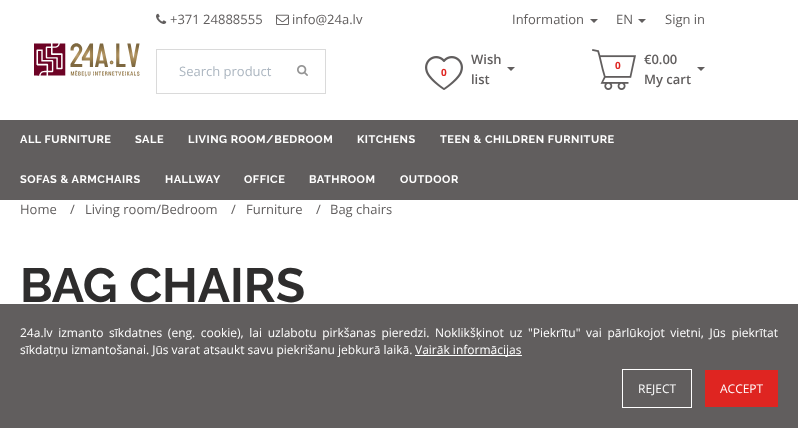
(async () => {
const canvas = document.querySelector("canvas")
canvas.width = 798
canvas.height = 428
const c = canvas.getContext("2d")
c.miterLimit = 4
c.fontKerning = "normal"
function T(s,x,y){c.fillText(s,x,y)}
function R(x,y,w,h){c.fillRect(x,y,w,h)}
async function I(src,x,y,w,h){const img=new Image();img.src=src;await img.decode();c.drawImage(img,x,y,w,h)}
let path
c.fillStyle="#fff"
R(0,0,798,428)
await I("1.png",34,43,106,34)
await I("2.png",156,13,11,11)
c.font="13px Open Sans"
c.fillStyle="#615e5e"
T("+371 24888555",170,24)
await I("3.png",276,14,13,11)
T("info@24a.lv",292,24)
T("Information",512,24)
path = new Path2D("M590 19h8l-4 4z")
c.fill(path)
T("EN",616,24)
path = new Path2D("M638 19h8l-4 4z")
c.fill(path)
T("Sign in",665,24)
c.strokeStyle="#dadada"
c.strokeRect(156.5,49.5,169,44)
c.fillStyle="#acb6c0"
T("Search product",179,76)
await I("4.png",297,65,11,11)
await I("5.png",425,56,38,34)
c.font="bold 10px Open Sans"
c.fillStyle="#df2521"
T("0",441,76)
c.font="600 13px Open Sans"
c.fillStyle="#615e5e"
T("Wish",471,64)
T("list",471,84)
path = new Path2D("M507 67h8l-4 4z")
c.fill(path)
await I("6.png",592,49,44,41)
c.font="bold 10px Open Sans"
c.fillStyle="#df2521"
T("0",615,69)
c.font="600 13px Open Sans"
c.fillStyle="#615e5e"
T("€0.00",644,64)
T("My cart",644,84)
path = new Path2D("M697 67h8l-4 4z")
c.fill(path)
R(0,120,798,80)
c.letterSpacing="0.5px"
c.font="bold 11px Raleway"
c.fillStyle="#fff"
T("ALL FURNITURE",20,143)
T("SALE",135,143)
T("LIVING ROOM/BEDROOM",188,143)
T("KITCHENS",357,143)
T("TEEN & CHILDREN FURNITURE",440,143)
T("SOFAS & ARMCHAIRS",20,183)
T("HALLWAY",165,183)
T("OFFICE",244,183)
T("BATHROOM",309,183)
T("OUTDOOR",400,183)
c.letterSpacing="0px"
c.font="13px Open Sans"
c.fillStyle="#615e5e"
T("Home",20,214)
T("/",70,214)
T("Living room/Bedroom",85,214)
T("/",231,214)
T("Furniture",246,214)
T("/",316,214)
T("Bag chairs",330,214)
c.font="bold 48px Raleway"
c.fillStyle="#2e2d2d"
T("BAG CHAIRS",20,302)
c.fillStyle="#615e5e"
R(0,304,798,124)
c.wordSpacing="2.5px"
c.font="12px Open Sans"
c.fillStyle="#fff"
T("24a.lv izmanto sīkdatnes (eng. cookie), lai uzlabotu pirkšanas pieredzi. Noklikšķinot uz \"Piekrītu\" vai pārlūkojot vietni, Jūs piekrītat",20,337)
c.wordSpacing="0px"
T("sīkdatņu izmantošanai. Jūs varat atsaukt savu piekrišanu jebkurā laikā.",20,354)
R(415,355,107,1)
T("Vairāk informācijas",415,354)
c.strokeStyle="#fff"
c.strokeRect(622.5,369.5,69,38)
T("REJECT",638,393)
c.fillStyle="#df2521"
R(705,370,73,37)
c.fillStyle="#fff"
T("ACCEPT",720,393)
})()
